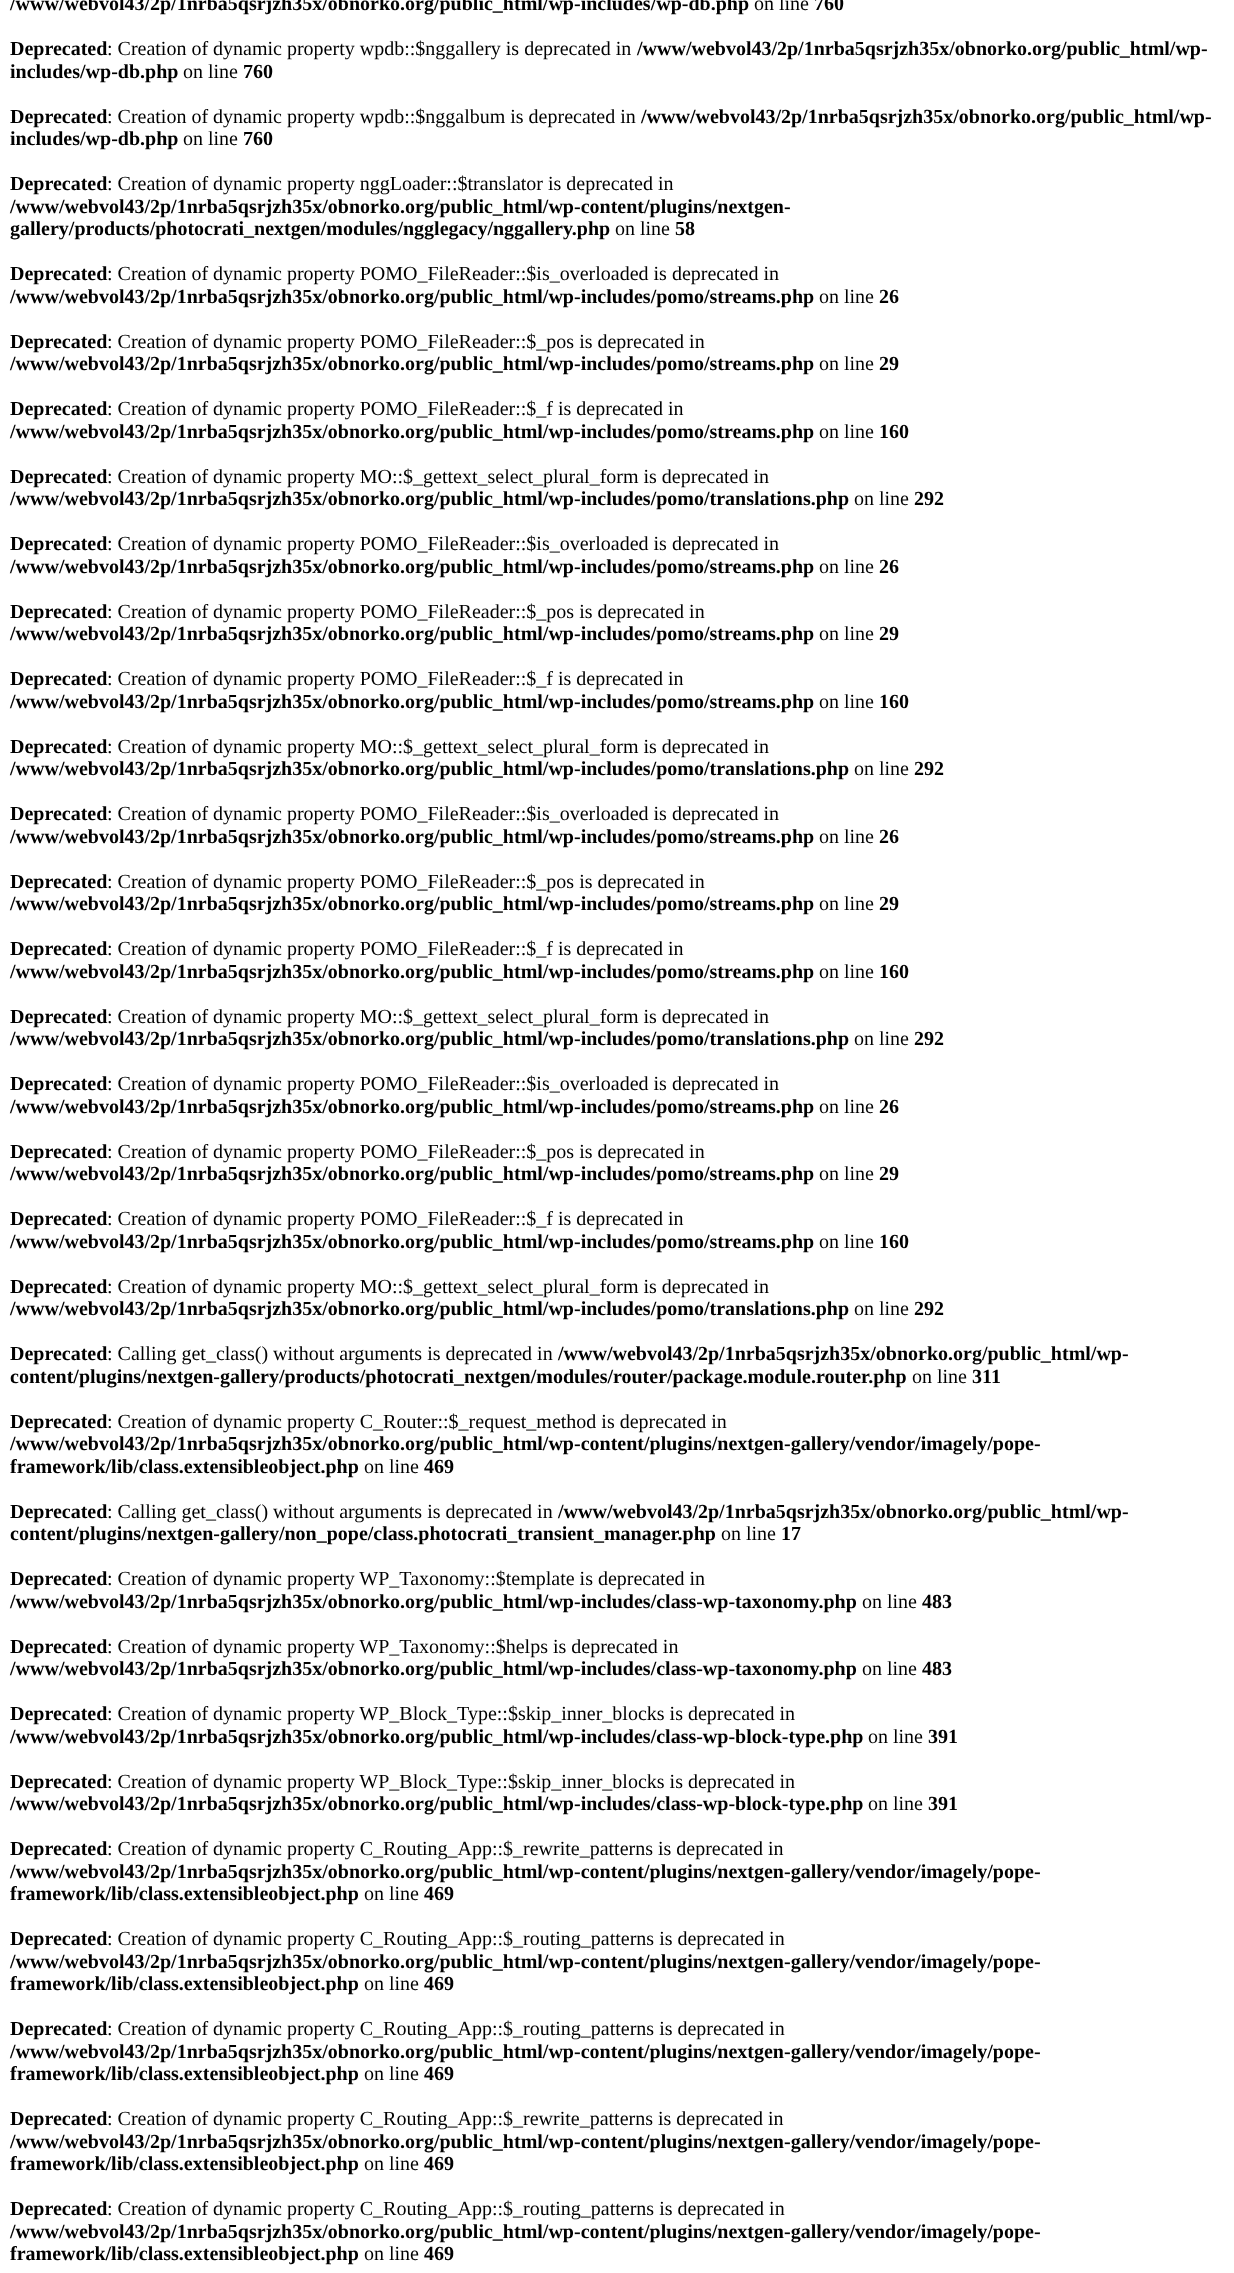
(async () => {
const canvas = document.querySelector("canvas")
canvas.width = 1234
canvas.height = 2273
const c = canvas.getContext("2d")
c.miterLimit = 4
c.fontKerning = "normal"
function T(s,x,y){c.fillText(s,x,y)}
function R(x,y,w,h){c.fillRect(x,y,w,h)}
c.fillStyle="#fff"
R(0,0,1234,2273)
c.font="bold 20px Liberation Serif"
c.fillStyle="#000"
T("/www/webvol43/2p/1nrba5qsrjzh35x/obnorko.org/public_html/wp-includes/wp-db.php",10,10)
c.font="20px Liberation Serif"
T("on line",754,10)
c.font="bold 20px Liberation Serif"
T("760",814,10)
T("Deprecated",10,55)
c.font="20px Liberation Serif"
T(": Creation of dynamic property wpdb::$nggallery is deprecated in",107,55)
c.font="bold 20px Liberation Serif"
T("/www/webvol43/2p/1nrba5qsrjzh35x/obnorko.org/public_html/wp-",637,55)
T("includes/wp-db.php",10,78)
c.font="20px Liberation Serif"
T("on line",183,78)
c.font="bold 20px Liberation Serif"
T("760",243,78)
T("Deprecated",10,123)
c.font="20px Liberation Serif"
T(": Creation of dynamic property wpdb::$nggalbum is deprecated in",107,123)
c.font="bold 20px Liberation Serif"
T("/www/webvol43/2p/1nrba5qsrjzh35x/obnorko.org/public_html/wp-",641,123)
T("includes/wp-db.php",10,145)
c.font="20px Liberation Serif"
T("on line",183,145)
c.font="bold 20px Liberation Serif"
T("760",243,145)
T("Deprecated",10,190)
c.font="20px Liberation Serif"
T(": Creation of dynamic property nggLoader::$translator is deprecated in",107,190)
c.font="bold 20px Liberation Serif"
T("/www/webvol43/2p/1nrba5qsrjzh35x/obnorko.org/public_html/wp-content/plugins/nextgen-",10,213)
T("gallery/products/photocrati_nextgen/modules/ngglegacy/nggallery.php",10,235)
c.font="20px Liberation Serif"
T("on line",615,235)
c.font="bold 20px Liberation Serif"
T("58",675,235)
T("Deprecated",10,280)
c.font="20px Liberation Serif"
T(": Creation of dynamic property POMO_FileReader::$is_overloaded is deprecated in",107,280)
c.font="bold 20px Liberation Serif"
T("/www/webvol43/2p/1nrba5qsrjzh35x/obnorko.org/public_html/wp-includes/pomo/streams.php",10,303)
c.font="20px Liberation Serif"
T("on line",819,303)
c.font="bold 20px Liberation Serif"
T("26",879,303)
T("Deprecated",10,348)
c.font="20px Liberation Serif"
T(": Creation of dynamic property POMO_FileReader::$_pos is deprecated in",107,348)
c.font="bold 20px Liberation Serif"
T("/www/webvol43/2p/1nrba5qsrjzh35x/obnorko.org/public_html/wp-includes/pomo/streams.php",10,370)
c.font="20px Liberation Serif"
T("on line",819,370)
c.font="bold 20px Liberation Serif"
T("29",879,370)
T("Deprecated",10,415)
c.font="20px Liberation Serif"
T(": Creation of dynamic property POMO_FileReader::$_f is deprecated in",107,415)
c.font="bold 20px Liberation Serif"
T("/www/webvol43/2p/1nrba5qsrjzh35x/obnorko.org/public_html/wp-includes/pomo/streams.php",10,438)
c.font="20px Liberation Serif"
T("on line",819,438)
c.font="bold 20px Liberation Serif"
T("160",879,438)
T("Deprecated",10,483)
c.font="20px Liberation Serif"
T(": Creation of dynamic property MO::$_gettext_select_plural_form is deprecated in",107,483)
c.font="bold 20px Liberation Serif"
T("/www/webvol43/2p/1nrba5qsrjzh35x/obnorko.org/public_html/wp-includes/pomo/translations.php",10,505)
c.font="20px Liberation Serif"
T("on line",854,505)
c.font="bold 20px Liberation Serif"
T("292",914,505)
T("Deprecated",10,550)
c.font="20px Liberation Serif"
T(": Creation of dynamic property POMO_FileReader::$is_overloaded is deprecated in",107,550)
c.font="bold 20px Liberation Serif"
T("/www/webvol43/2p/1nrba5qsrjzh35x/obnorko.org/public_html/wp-includes/pomo/streams.php",10,573)
c.font="20px Liberation Serif"
T("on line",819,573)
c.font="bold 20px Liberation Serif"
T("26",879,573)
T("Deprecated",10,618)
c.font="20px Liberation Serif"
T(": Creation of dynamic property POMO_FileReader::$_pos is deprecated in",107,618)
c.font="bold 20px Liberation Serif"
T("/www/webvol43/2p/1nrba5qsrjzh35x/obnorko.org/public_html/wp-includes/pomo/streams.php",10,640)
c.font="20px Liberation Serif"
T("on line",819,640)
c.font="bold 20px Liberation Serif"
T("29",879,640)
T("Deprecated",10,685)
c.font="20px Liberation Serif"
T(": Creation of dynamic property POMO_FileReader::$_f is deprecated in",107,685)
c.font="bold 20px Liberation Serif"
T("/www/webvol43/2p/1nrba5qsrjzh35x/obnorko.org/public_html/wp-includes/pomo/streams.php",10,708)
c.font="20px Liberation Serif"
T("on line",819,708)
c.font="bold 20px Liberation Serif"
T("160",879,708)
T("Deprecated",10,753)
c.font="20px Liberation Serif"
T(": Creation of dynamic property MO::$_gettext_select_plural_form is deprecated in",107,753)
c.font="bold 20px Liberation Serif"
T("/www/webvol43/2p/1nrba5qsrjzh35x/obnorko.org/public_html/wp-includes/pomo/translations.php",10,775)
c.font="20px Liberation Serif"
T("on line",854,775)
c.font="bold 20px Liberation Serif"
T("292",914,775)
T("Deprecated",10,820)
c.font="20px Liberation Serif"
T(": Creation of dynamic property POMO_FileReader::$is_overloaded is deprecated in",107,820)
c.font="bold 20px Liberation Serif"
T("/www/webvol43/2p/1nrba5qsrjzh35x/obnorko.org/public_html/wp-includes/pomo/streams.php",10,843)
c.font="20px Liberation Serif"
T("on line",819,843)
c.font="bold 20px Liberation Serif"
T("26",879,843)
T("Deprecated",10,888)
c.font="20px Liberation Serif"
T(": Creation of dynamic property POMO_FileReader::$_pos is deprecated in",107,888)
c.font="bold 20px Liberation Serif"
T("/www/webvol43/2p/1nrba5qsrjzh35x/obnorko.org/public_html/wp-includes/pomo/streams.php",10,910)
c.font="20px Liberation Serif"
T("on line",819,910)
c.font="bold 20px Liberation Serif"
T("29",879,910)
T("Deprecated",10,955)
c.font="20px Liberation Serif"
T(": Creation of dynamic property POMO_FileReader::$_f is deprecated in",107,955)
c.font="bold 20px Liberation Serif"
T("/www/webvol43/2p/1nrba5qsrjzh35x/obnorko.org/public_html/wp-includes/pomo/streams.php",10,978)
c.font="20px Liberation Serif"
T("on line",819,978)
c.font="bold 20px Liberation Serif"
T("160",879,978)
T("Deprecated",10,1023)
c.font="20px Liberation Serif"
T(": Creation of dynamic property MO::$_gettext_select_plural_form is deprecated in",107,1023)
c.font="bold 20px Liberation Serif"
T("/www/webvol43/2p/1nrba5qsrjzh35x/obnorko.org/public_html/wp-includes/pomo/translations.php",10,1045)
c.font="20px Liberation Serif"
T("on line",854,1045)
c.font="bold 20px Liberation Serif"
T("292",914,1045)
T("Deprecated",10,1090)
c.font="20px Liberation Serif"
T(": Creation of dynamic property POMO_FileReader::$is_overloaded is deprecated in",107,1090)
c.font="bold 20px Liberation Serif"
T("/www/webvol43/2p/1nrba5qsrjzh35x/obnorko.org/public_html/wp-includes/pomo/streams.php",10,1113)
c.font="20px Liberation Serif"
T("on line",819,1113)
c.font="bold 20px Liberation Serif"
T("26",879,1113)
T("Deprecated",10,1158)
c.font="20px Liberation Serif"
T(": Creation of dynamic property POMO_FileReader::$_pos is deprecated in",107,1158)
c.font="bold 20px Liberation Serif"
T("/www/webvol43/2p/1nrba5qsrjzh35x/obnorko.org/public_html/wp-includes/pomo/streams.php",10,1180)
c.font="20px Liberation Serif"
T("on line",819,1180)
c.font="bold 20px Liberation Serif"
T("29",879,1180)
T("Deprecated",10,1225)
c.font="20px Liberation Serif"
T(": Creation of dynamic property POMO_FileReader::$_f is deprecated in",107,1225)
c.font="bold 20px Liberation Serif"
T("/www/webvol43/2p/1nrba5qsrjzh35x/obnorko.org/public_html/wp-includes/pomo/streams.php",10,1248)
c.font="20px Liberation Serif"
T("on line",819,1248)
c.font="bold 20px Liberation Serif"
T("160",879,1248)
T("Deprecated",10,1293)
c.font="20px Liberation Serif"
T(": Creation of dynamic property MO::$_gettext_select_plural_form is deprecated in",107,1293)
c.font="bold 20px Liberation Serif"
T("/www/webvol43/2p/1nrba5qsrjzh35x/obnorko.org/public_html/wp-includes/pomo/translations.php",10,1315)
c.font="20px Liberation Serif"
T("on line",854,1315)
c.font="bold 20px Liberation Serif"
T("292",914,1315)
T("Deprecated",10,1360)
c.font="20px Liberation Serif"
T(": Calling get_class() without arguments is deprecated in",107,1360)
c.font="bold 20px Liberation Serif"
T("/www/webvol43/2p/1nrba5qsrjzh35x/obnorko.org/public_html/wp-",558,1360)
T("content/plugins/nextgen-gallery/products/photocrati_nextgen/modules/router/package.module.router.php",10,1383)
c.font="20px Liberation Serif"
T("on line",912,1383)
c.font="bold 20px Liberation Serif"
T("311",972,1383)
T("Deprecated",10,1428)
c.font="20px Liberation Serif"
T(": Creation of dynamic property C_Router::$_request_method is deprecated in",107,1428)
c.font="bold 20px Liberation Serif"
T("/www/webvol43/2p/1nrba5qsrjzh35x/obnorko.org/public_html/wp-content/plugins/nextgen-gallery/vendor/imagely/pope-",10,1450)
T("framework/lib/class.extensibleobject.php",10,1473)
c.font="20px Liberation Serif"
T("on line",364,1473)
c.font="bold 20px Liberation Serif"
T("469",424,1473)
T("Deprecated",10,1518)
c.font="20px Liberation Serif"
T(": Calling get_class() without arguments is deprecated in",107,1518)
c.font="bold 20px Liberation Serif"
T("/www/webvol43/2p/1nrba5qsrjzh35x/obnorko.org/public_html/wp-",558,1518)
T("content/plugins/nextgen-gallery/non_pope/class.photocrati_transient_manager.php",10,1540)
c.font="20px Liberation Serif"
T("on line",721,1540)
c.font="bold 20px Liberation Serif"
T("17",781,1540)
T("Deprecated",10,1585)
c.font="20px Liberation Serif"
T(": Creation of dynamic property WP_Taxonomy::$template is deprecated in",107,1585)
c.font="bold 20px Liberation Serif"
T("/www/webvol43/2p/1nrba5qsrjzh35x/obnorko.org/public_html/wp-includes/class-wp-taxonomy.php",10,1608)
c.font="20px Liberation Serif"
T("on line",862,1608)
c.font="bold 20px Liberation Serif"
T("483",922,1608)
T("Deprecated",10,1653)
c.font="20px Liberation Serif"
T(": Creation of dynamic property WP_Taxonomy::$helps is deprecated in",107,1653)
c.font="bold 20px Liberation Serif"
T("/www/webvol43/2p/1nrba5qsrjzh35x/obnorko.org/public_html/wp-includes/class-wp-taxonomy.php",10,1675)
c.font="20px Liberation Serif"
T("on line",862,1675)
c.font="bold 20px Liberation Serif"
T("483",922,1675)
T("Deprecated",10,1720)
c.font="20px Liberation Serif"
T(": Creation of dynamic property WP_Block_Type::$skip_inner_blocks is deprecated in",107,1720)
c.font="bold 20px Liberation Serif"
T("/www/webvol43/2p/1nrba5qsrjzh35x/obnorko.org/public_html/wp-includes/class-wp-block-type.php",10,1743)
c.font="20px Liberation Serif"
T("on line",868,1743)
c.font="bold 20px Liberation Serif"
T("391",928,1743)
T("Deprecated",10,1788)
c.font="20px Liberation Serif"
T(": Creation of dynamic property WP_Block_Type::$skip_inner_blocks is deprecated in",107,1788)
c.font="bold 20px Liberation Serif"
T("/www/webvol43/2p/1nrba5qsrjzh35x/obnorko.org/public_html/wp-includes/class-wp-block-type.php",10,1810)
c.font="20px Liberation Serif"
T("on line",868,1810)
c.font="bold 20px Liberation Serif"
T("391",928,1810)
T("Deprecated",10,1855)
c.font="20px Liberation Serif"
T(": Creation of dynamic property C_Routing_App::$_rewrite_patterns is deprecated in",107,1855)
c.font="bold 20px Liberation Serif"
T("/www/webvol43/2p/1nrba5qsrjzh35x/obnorko.org/public_html/wp-content/plugins/nextgen-gallery/vendor/imagely/pope-",10,1878)
T("framework/lib/class.extensibleobject.php",10,1900)
c.font="20px Liberation Serif"
T("on line",364,1900)
c.font="bold 20px Liberation Serif"
T("469",424,1900)
T("Deprecated",10,1945)
c.font="20px Liberation Serif"
T(": Creation of dynamic property C_Routing_App::$_routing_patterns is deprecated in",107,1945)
c.font="bold 20px Liberation Serif"
T("/www/webvol43/2p/1nrba5qsrjzh35x/obnorko.org/public_html/wp-content/plugins/nextgen-gallery/vendor/imagely/pope-",10,1968)
T("framework/lib/class.extensibleobject.php",10,1990)
c.font="20px Liberation Serif"
T("on line",364,1990)
c.font="bold 20px Liberation Serif"
T("469",424,1990)
T("Deprecated",10,2035)
c.font="20px Liberation Serif"
T(": Creation of dynamic property C_Routing_App::$_routing_patterns is deprecated in",107,2035)
c.font="bold 20px Liberation Serif"
T("/www/webvol43/2p/1nrba5qsrjzh35x/obnorko.org/public_html/wp-content/plugins/nextgen-gallery/vendor/imagely/pope-",10,2058)
T("framework/lib/class.extensibleobject.php",10,2080)
c.font="20px Liberation Serif"
T("on line",364,2080)
c.font="bold 20px Liberation Serif"
T("469",424,2080)
T("Deprecated",10,2125)
c.font="20px Liberation Serif"
T(": Creation of dynamic property C_Routing_App::$_rewrite_patterns is deprecated in",107,2125)
c.font="bold 20px Liberation Serif"
T("/www/webvol43/2p/1nrba5qsrjzh35x/obnorko.org/public_html/wp-content/plugins/nextgen-gallery/vendor/imagely/pope-",10,2148)
T("framework/lib/class.extensibleobject.php",10,2170)
c.font="20px Liberation Serif"
T("on line",364,2170)
c.font="bold 20px Liberation Serif"
T("469",424,2170)
T("Deprecated",10,2215)
c.font="20px Liberation Serif"
T(": Creation of dynamic property C_Routing_App::$_routing_patterns is deprecated in",107,2215)
c.font="bold 20px Liberation Serif"
T("/www/webvol43/2p/1nrba5qsrjzh35x/obnorko.org/public_html/wp-content/plugins/nextgen-gallery/vendor/imagely/pope-",10,2238)
T("framework/lib/class.extensibleobject.php",10,2260)
c.font="20px Liberation Serif"
T("on line",364,2260)
c.font="bold 20px Liberation Serif"
T("469",424,2260)
})()
